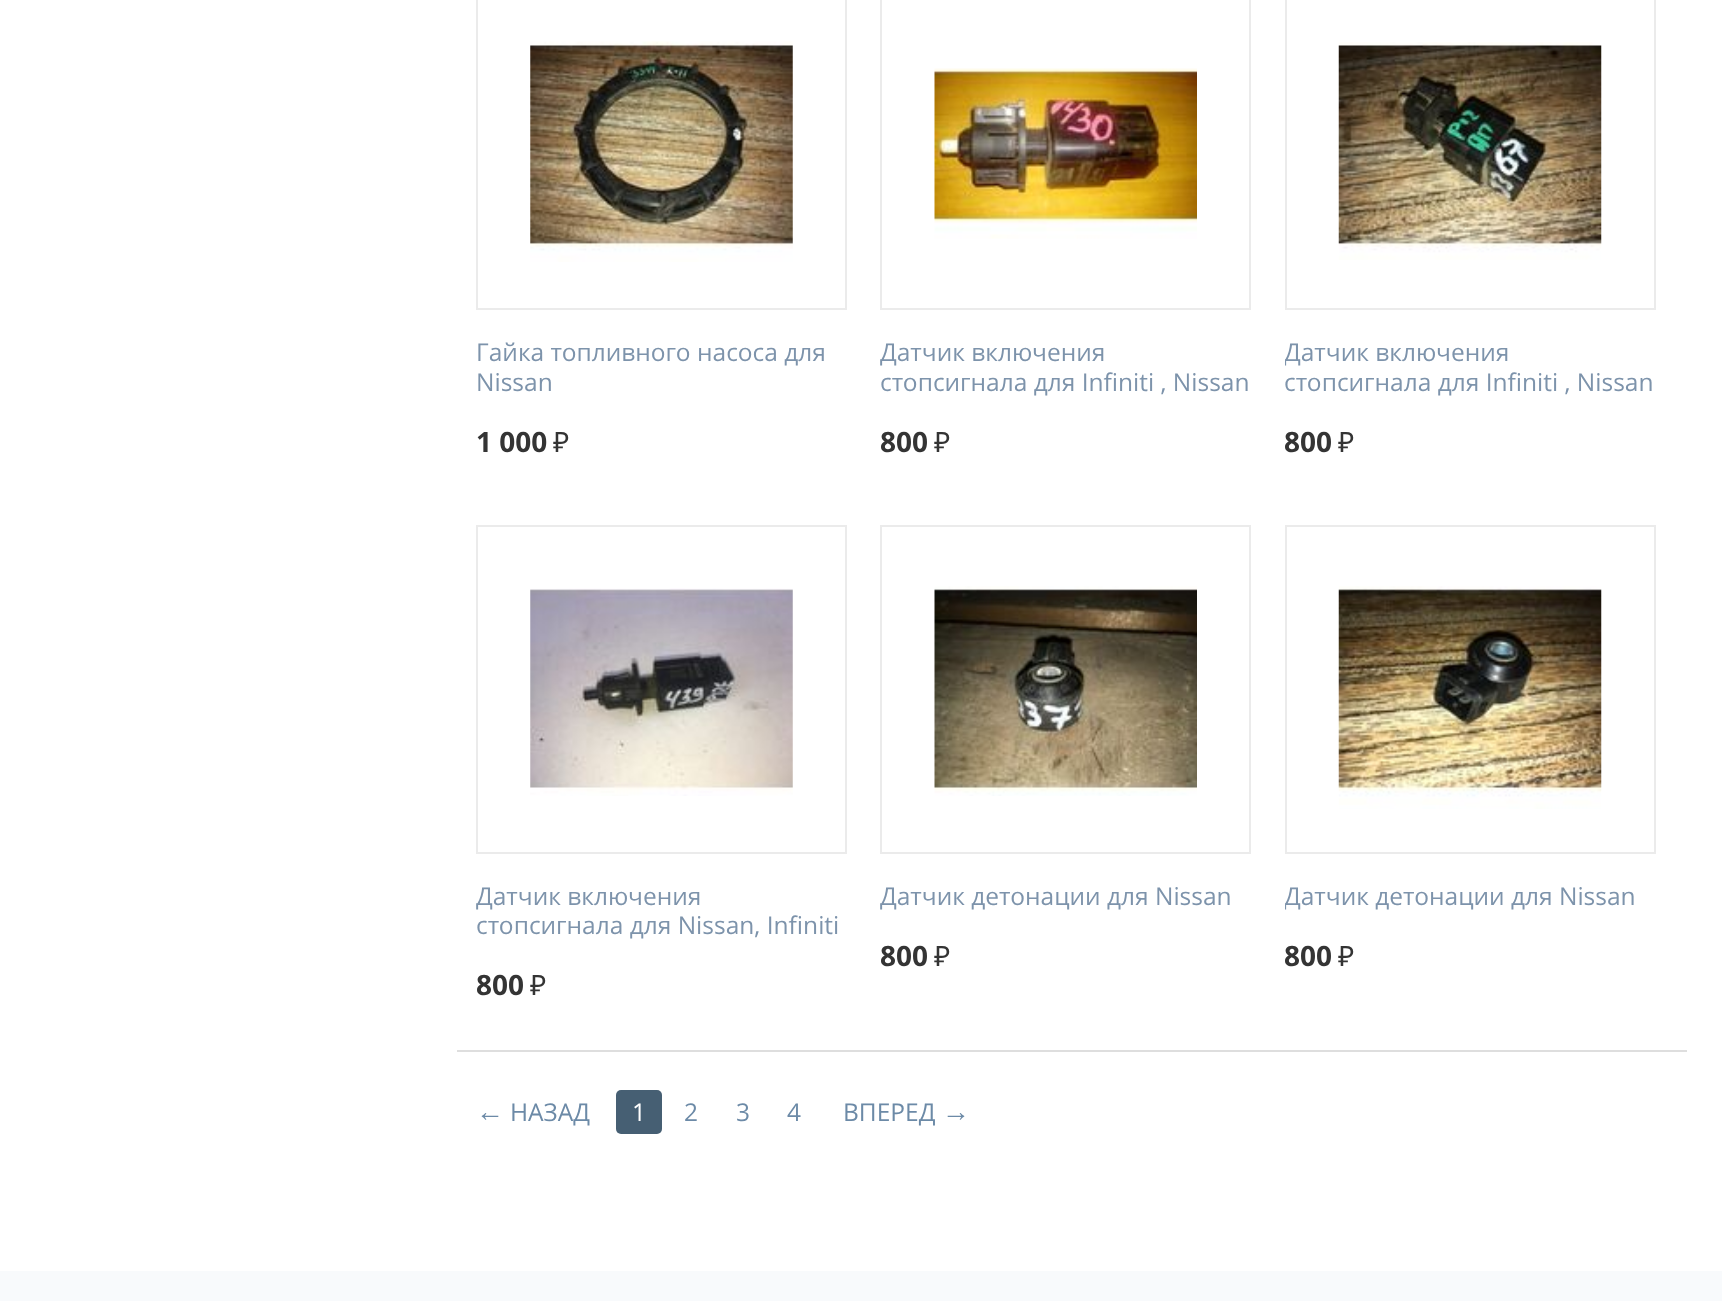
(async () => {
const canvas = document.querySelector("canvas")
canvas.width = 1722
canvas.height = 1301
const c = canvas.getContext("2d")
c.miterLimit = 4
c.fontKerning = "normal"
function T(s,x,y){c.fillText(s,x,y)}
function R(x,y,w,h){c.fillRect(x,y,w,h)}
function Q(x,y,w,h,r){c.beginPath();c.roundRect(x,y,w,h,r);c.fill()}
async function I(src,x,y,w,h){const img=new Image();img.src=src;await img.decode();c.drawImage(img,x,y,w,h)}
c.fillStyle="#fff"
R(0,0,1722,1301)
c.strokeStyle="#ebebeb"
c.lineWidth=2
c.strokeRect(477,-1,369,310)
await I("1.png",530,41,263,221)
c.font="24.5px Open Sans"
c.fillStyle="#7d93ab"
T("Гайка топливного насоса для",476,361)
T("Nissan",476,391)
c.font="bold 28px Open Sans"
c.fillStyle="#343434"
T("1 000",476,452)
c.font="28px Noto Sans"
T("₽",553,452)
c.strokeRect(881,-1,369,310)
await I("2.png",934,68,263,171)
c.font="24.5px Open Sans"
c.fillStyle="#7d93ab"
T("Датчик включения",880,361)
T("стопсигнала для Infiniti , Nissan",880,391)
c.font="bold 28px Open Sans"
c.fillStyle="#343434"
T("800",880,452)
c.font="28px Noto Sans"
T("₽",934,452)
c.strokeRect(1286,-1,369,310)
await I("3.png",1338,42,264,218)
c.save()
c.beginPath()
c.rect(1285,338,371,59)
c.clip()
c.font="24.5px Open Sans"
c.fillStyle="#7d93ab"
T("Датчик включения",1284,361)
c.restore()
c.font="24.5px Open Sans"
c.fillStyle="#7d93ab"
T("стопсигнала для Infiniti , Nissan",1284,391)
c.font="bold 28px Open Sans"
c.fillStyle="#343434"
T("800",1284,452)
c.font="28px Noto Sans"
T("₽",1338,452)
c.strokeRect(477,526,369,327)
await I("4.png",530,588,263,208)
c.font="24.5px Open Sans"
c.fillStyle="#7d93ab"
T("Датчик включения",476,905)
T("стопсигнала для Nissan, Infiniti",476,934)
c.font="bold 28px Open Sans"
c.fillStyle="#343434"
T("800",476,995)
c.font="28px Noto Sans"
T("₽",530,995)
c.strokeRect(881,526,369,327)
await I("5.png",934,586,263,210)
c.font="24.5px Open Sans"
c.fillStyle="#7d93ab"
T("Датчик детонации для Nissan",880,905)
c.font="bold 28px Open Sans"
c.fillStyle="#343434"
T("800",880,966)
c.font="28px Noto Sans"
T("₽",934,966)
c.strokeRect(1286,526,369,327)
await I("6.png",1338,586,264,223)
c.save()
c.beginPath()
c.rect(1285,882,371,30)
c.clip()
c.font="24.5px Open Sans"
c.fillStyle="#7d93ab"
T("Датчик детонации для Nissan",1284,905)
c.restore()
c.font="bold 28px Open Sans"
T("800",1284,966)
c.font="28px Noto Sans"
T("₽",1338,966)
c.fillStyle="#dedede"
R(457,1050,1230,2)
c.font="28px Liberation Sans"
c.fillStyle="#6c8aa7"
T("←",476,1121)
c.font="24.5px Open Sans"
T("НАЗАД",510,1121)
c.fillStyle="#465f73"
Q(616,1090,46,44,5)
c.fillStyle="#fff"
T("1",632,1121)
c.fillStyle="#6c8aa7"
T("2",684,1121)
T("3",736,1121)
T("4",787,1121)
T("ВПЕРЕД",843,1121)
c.font="28px Liberation Sans"
T("→",942,1121)
c.fillStyle="#f8fafc"
R(0,1271,1722,30)
})()
